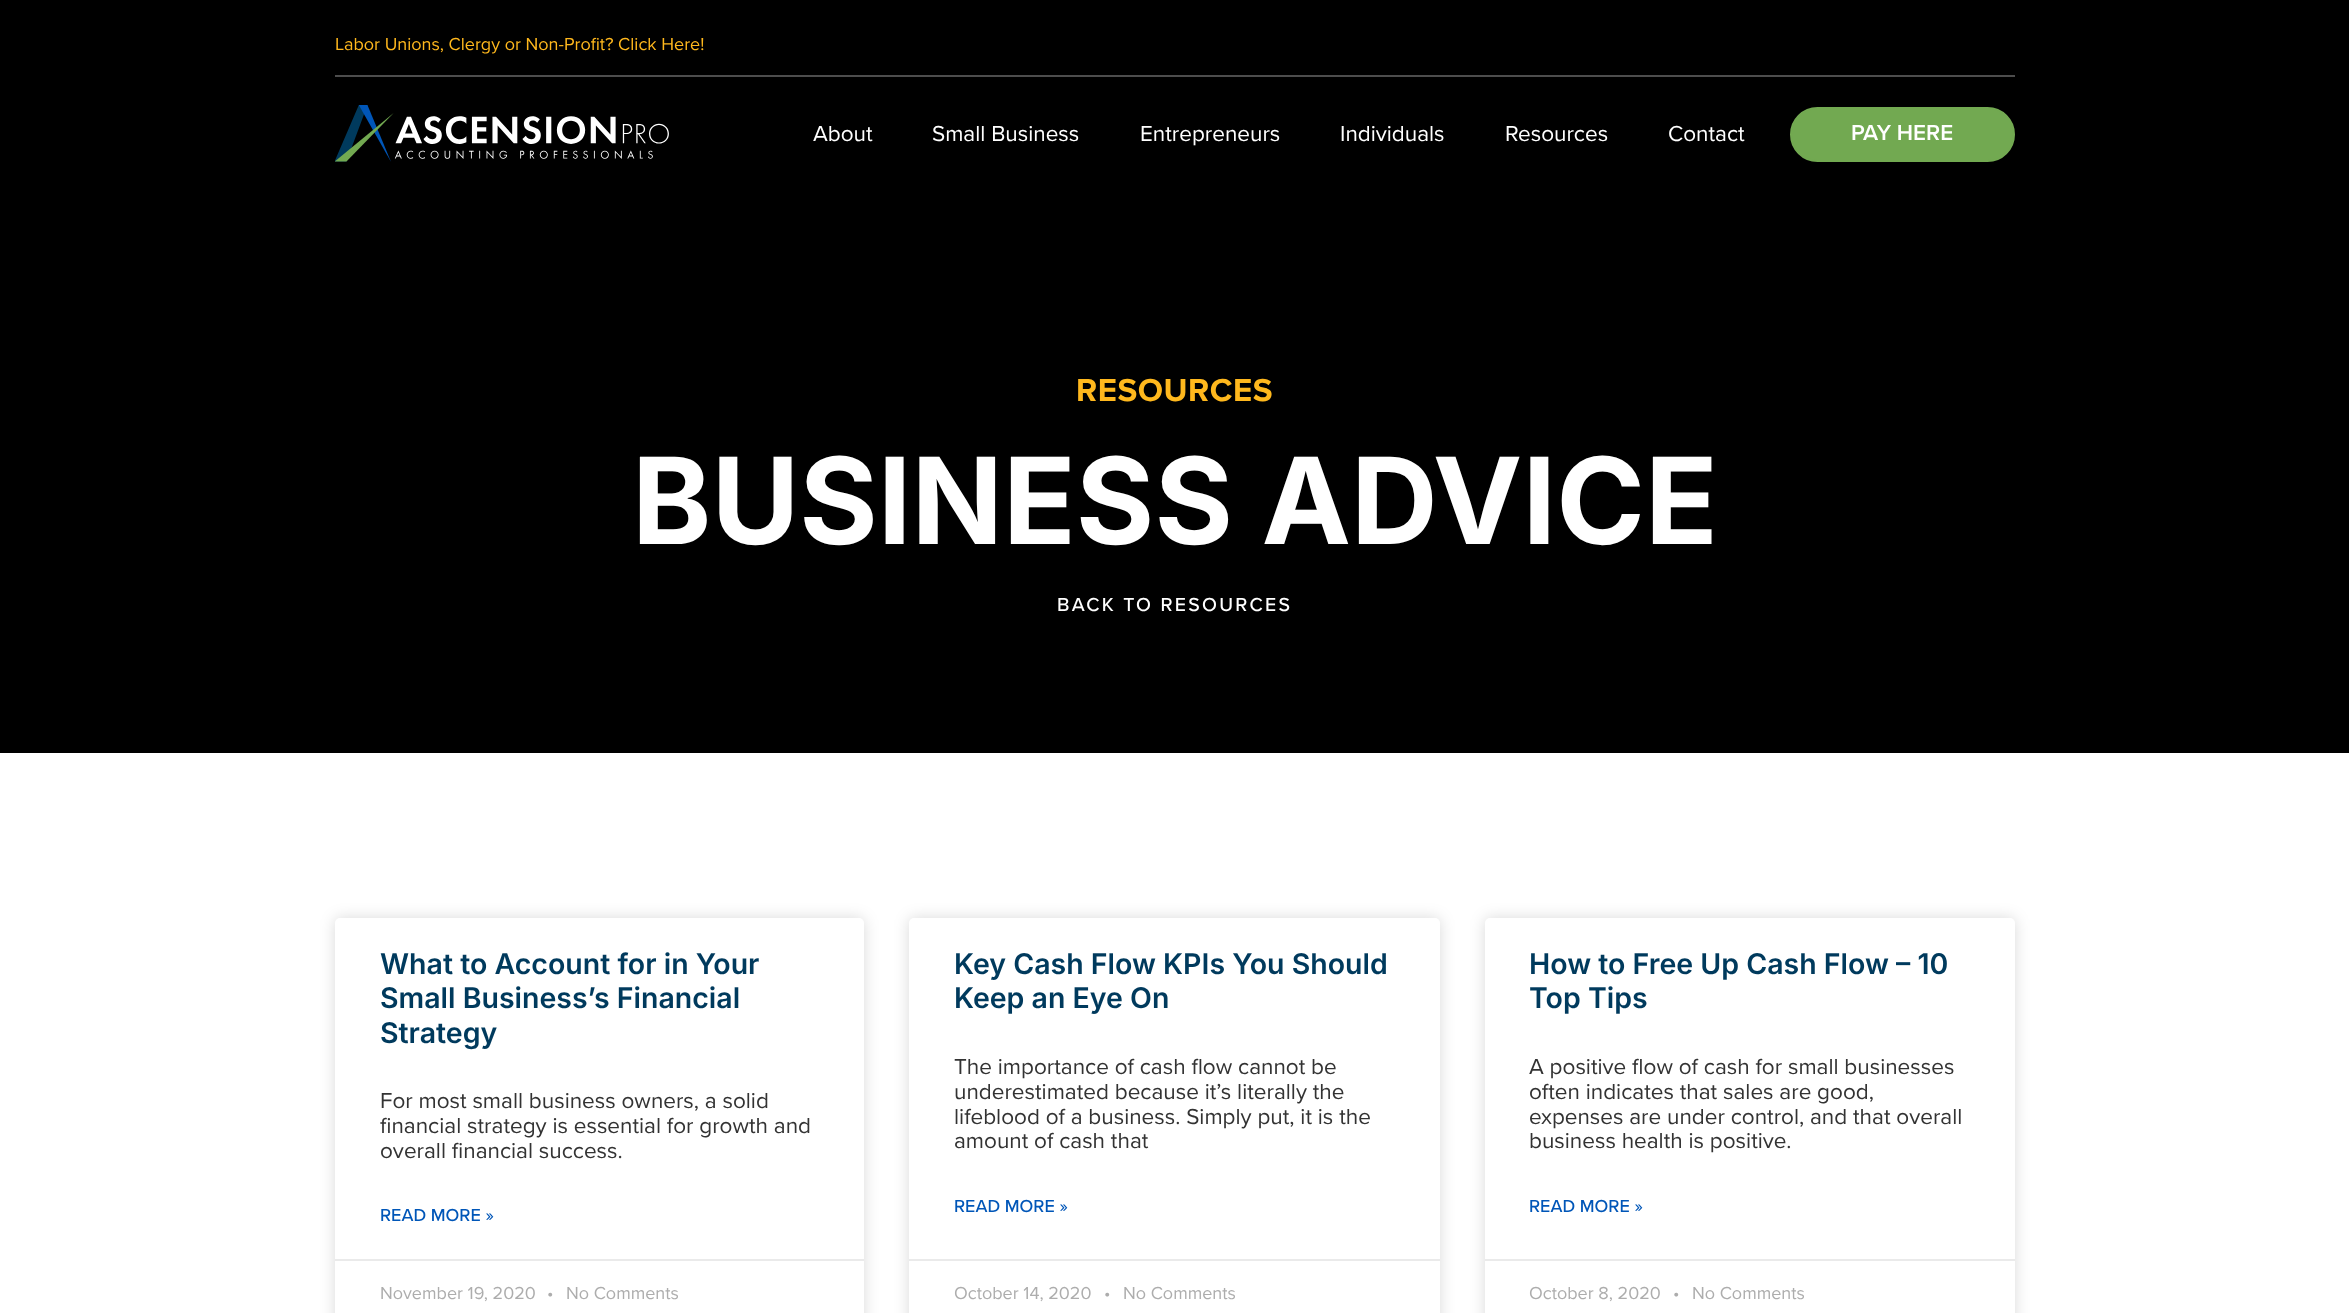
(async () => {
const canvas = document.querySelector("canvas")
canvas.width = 2349
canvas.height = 1313
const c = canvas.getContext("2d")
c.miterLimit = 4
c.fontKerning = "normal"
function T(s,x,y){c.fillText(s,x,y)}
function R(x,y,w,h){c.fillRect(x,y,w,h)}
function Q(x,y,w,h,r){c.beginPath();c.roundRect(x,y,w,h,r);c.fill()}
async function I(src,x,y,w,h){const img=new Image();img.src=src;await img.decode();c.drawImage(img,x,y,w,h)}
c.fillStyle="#fff"
R(0,0,2349,1313)
c.fillStyle="#000"
R(0,0,2349,753)
c.fillStyle="#4d4d4d"
R(335,75,1680,2)
c.font="18px Proxima Nova"
c.fillStyle="#ffb81d"
T("Labor Unions, Clergy or Non-Profit? Click Here!",335,50)
await I("1.png",335,105,334,57)
c.font="22.5px Proxima Nova"
c.fillStyle="#fff"
T("About",813,141)
T("Small Business",932,141)
T("Entrepreneurs",1140,141)
T("Individuals",1340,141)
T("Resources",1505,141)
T("Contact",1668,141)
c.fillStyle="#72a951"
c.beginPath()
c.roundRect(1791,108,223,53,26.5)
c.fill()
c.strokeStyle="#72a951"
c.lineWidth=2
c.stroke()
c.font="600 22.5px Proxima Nova"
c.fillStyle="#fff"
T("PAY HERE",1851,140)
c.letterSpacing="0.5px"
c.font="bold 33px Proxima Nova"
c.fillStyle="#ffb81d"
T("RESOURCES",1076,401)
c.letterSpacing="0px"
c.font="bold 120px Inter"
c.fillStyle="#fff"
T("BUSINESS ADVICE",632,544)
c.letterSpacing="2.25px"
c.font="500 19.5px Proxima Nova"
T("BACK TO RESOURCES",1057,611)
c.fillStyle="#00000026"
c.filter="blur(7.5px)"
c.beginPath()
c.roundRect(335,918,529,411,5)
c.fill()
c.filter="none"
c.fillStyle="#fff"
Q(335,918,529,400,5)
c.letterSpacing="0px"
c.font="600 28.5px Inter"
c.fillStyle="#003a5d"
T("What to Account for in Your",380,974)
T("Small Business’s Financial",380,1008)
T("Strategy",380,1043)
c.font="22.5px Proxima Nova"
c.fillStyle="#333"
T("For most small business owners, a solid",380,1108)
T("financial strategy is essential for growth and",380,1133)
T("overall financial success.",380,1158)
c.font="500 18px Proxima Nova"
c.fillStyle="#0056b8"
T("READ MORE »",380,1221)
c.fillStyle="#eaeaea"
R(335,1259,529,2)
c.font="18px Proxima Nova"
c.fillStyle="#adadad"
T("November 19, 2020",380,1299)
T("•",547,1299)
T("No Comments",566,1299)
c.fillStyle="#00000026"
c.filter="blur(7.5px)"
c.beginPath()
c.roundRect(909,918,531,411,5)
c.fill()
c.filter="none"
c.fillStyle="#fff"
Q(909,918,531,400,5)
c.font="600 28.5px Inter"
c.fillStyle="#003a5d"
T("Key Cash Flow KPIs You Should",954,974)
T("Keep an Eye On",954,1008)
c.font="22.5px Proxima Nova"
c.fillStyle="#333"
T("The importance of cash flow cannot be",954,1074)
T("underestimated because it’s literally the",954,1099)
T("lifeblood of a business. Simply put, it is the",954,1124)
T("amount of cash that",954,1148)
c.font="500 18px Proxima Nova"
c.fillStyle="#0056b8"
T("READ MORE »",954,1212)
c.fillStyle="#eaeaea"
R(909,1259,531,2)
c.font="18px Proxima Nova"
c.fillStyle="#adadad"
T("October 14, 2020",954,1299)
T("•",1104,1299)
T("No Comments",1123,1299)
c.fillStyle="#00000026"
c.filter="blur(7.5px)"
c.beginPath()
c.roundRect(1485,918,530,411,5)
c.fill()
c.filter="none"
c.fillStyle="#fff"
Q(1485,918,530,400,5)
c.font="600 28.5px Inter"
c.fillStyle="#003a5d"
T("How to Free Up Cash Flow – 10",1529,974)
T("Top Tips",1529,1008)
c.font="22.5px Proxima Nova"
c.fillStyle="#333"
T("A positive flow of cash for small businesses",1529,1074)
T("often indicates that sales are good,",1529,1099)
T("expenses are under control, and that overall",1529,1124)
T("business health is positive.",1529,1148)
c.font="500 18px Proxima Nova"
c.fillStyle="#0056b8"
T("READ MORE »",1529,1212)
c.fillStyle="#eaeaea"
R(1485,1259,530,2)
c.font="18px Proxima Nova"
c.fillStyle="#adadad"
T("October 8, 2020",1529,1299)
T("•",1673,1299)
T("No Comments",1692,1299)
})()
